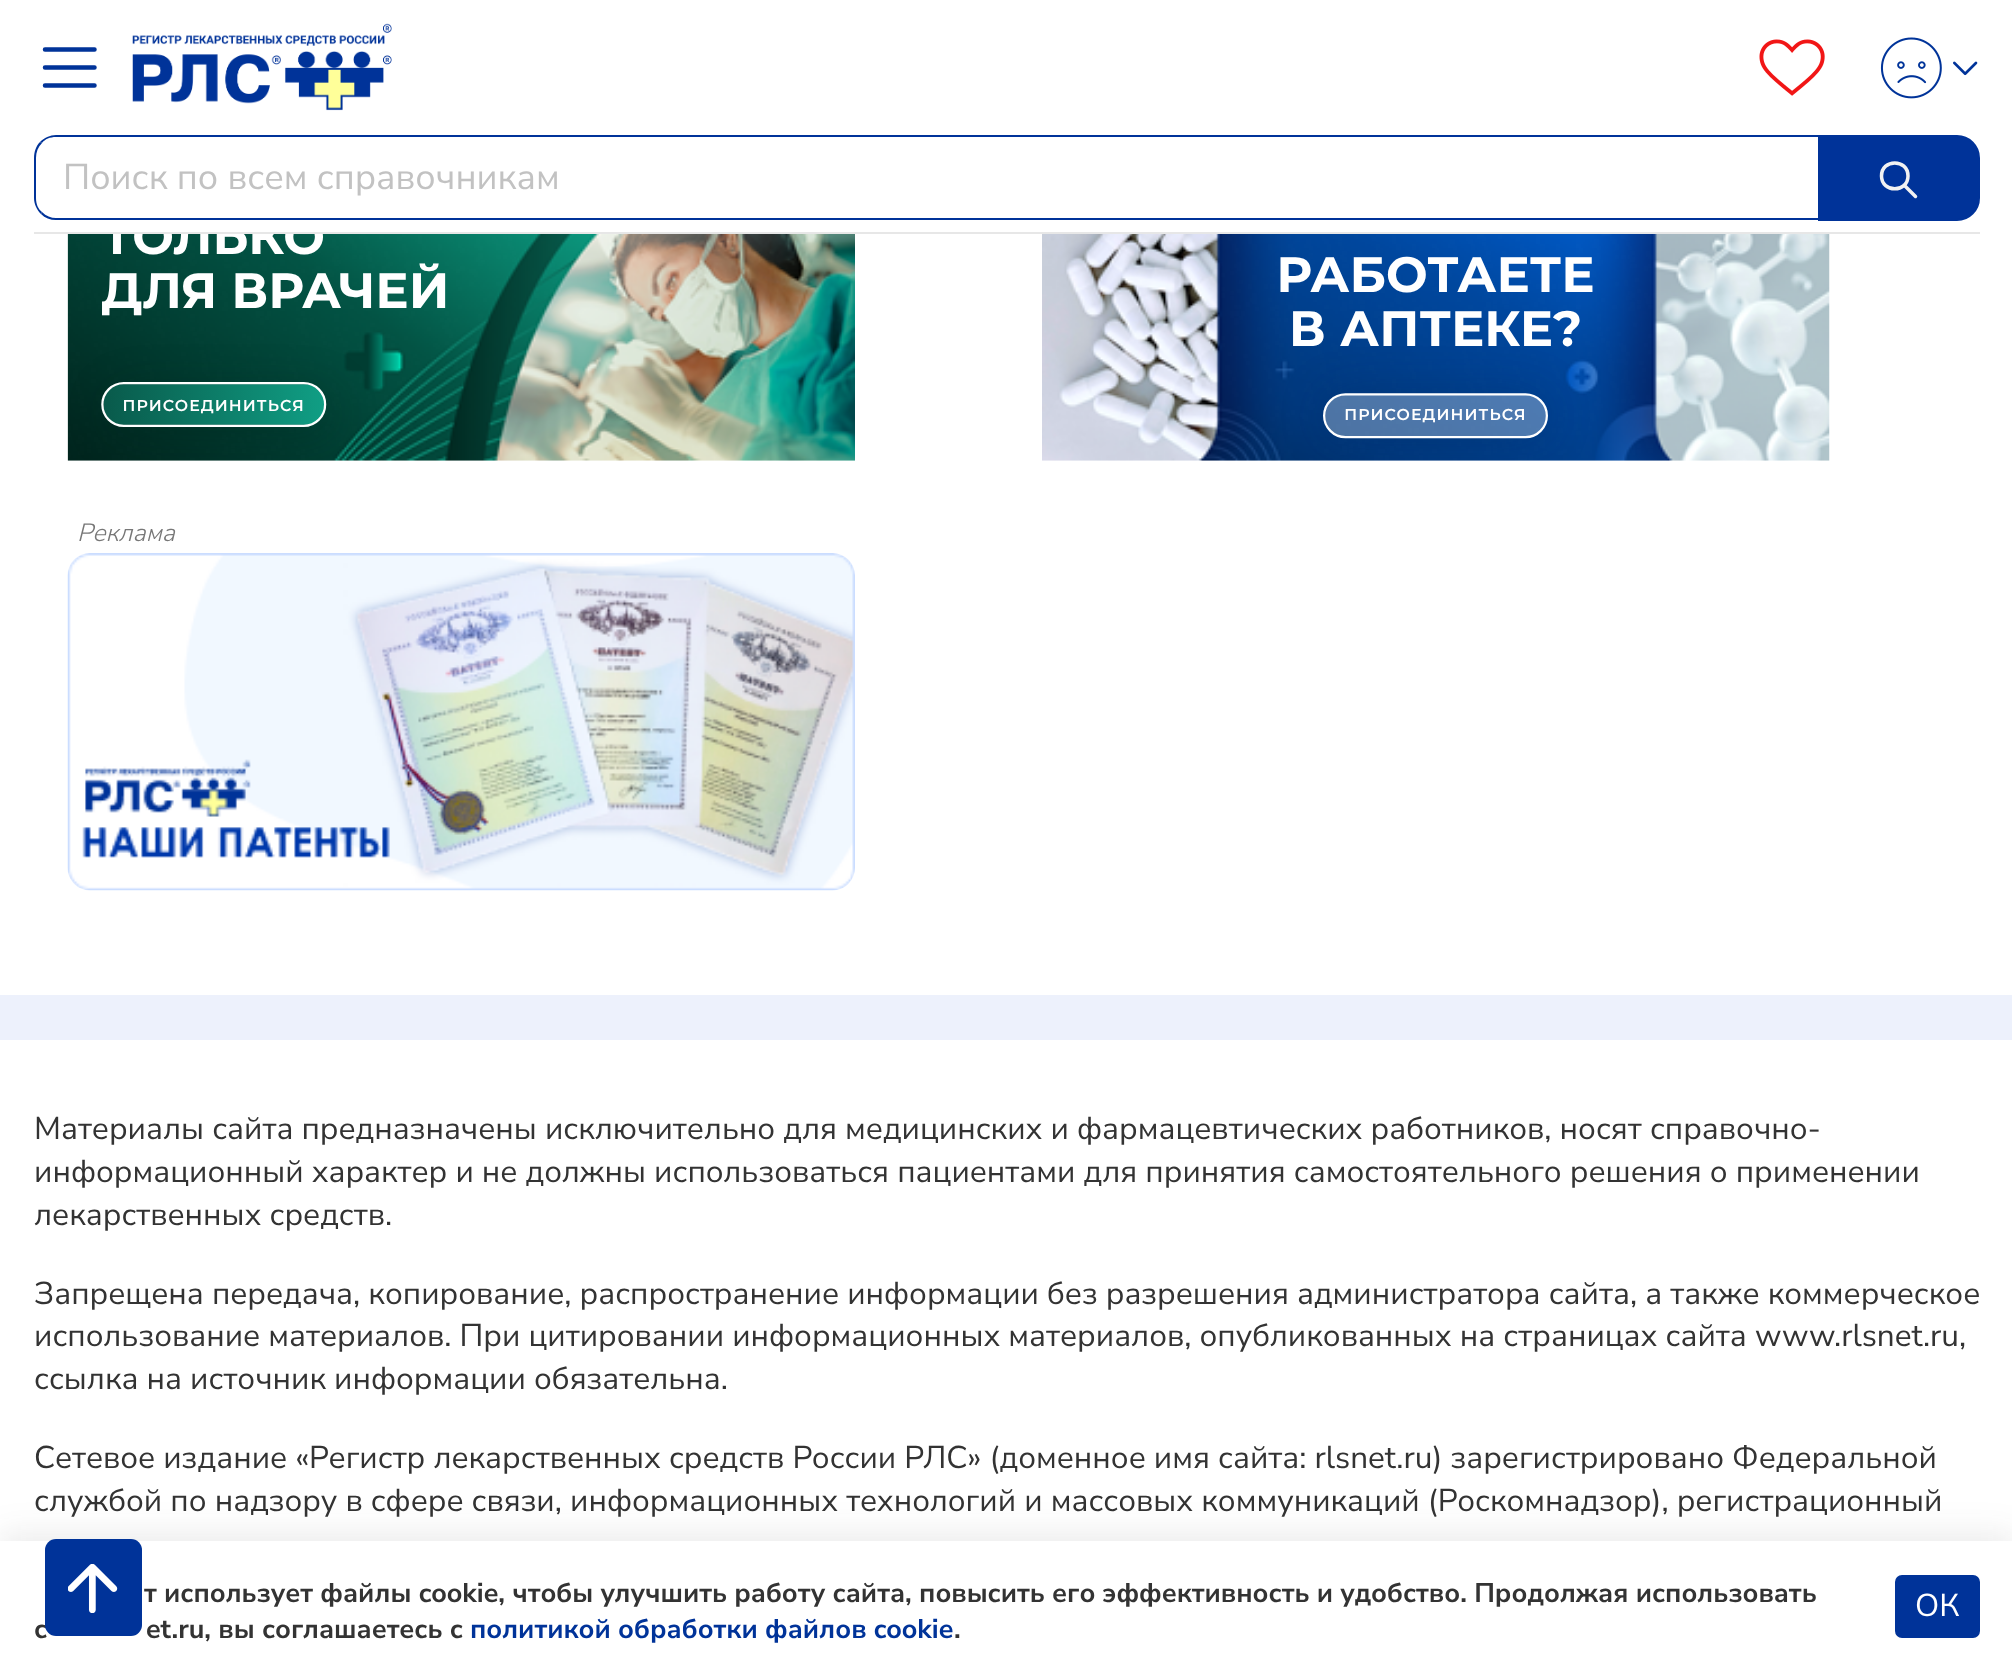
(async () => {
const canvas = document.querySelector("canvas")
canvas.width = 2012
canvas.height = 1680
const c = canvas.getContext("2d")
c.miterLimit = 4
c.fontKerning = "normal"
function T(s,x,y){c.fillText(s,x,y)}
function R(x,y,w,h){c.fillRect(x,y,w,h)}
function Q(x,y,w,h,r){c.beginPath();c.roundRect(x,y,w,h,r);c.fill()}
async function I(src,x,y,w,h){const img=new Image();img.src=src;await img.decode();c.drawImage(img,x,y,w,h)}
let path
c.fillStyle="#fff"
R(0,0,2012,1680)
c.fillStyle="#e7e7e7"
R(34,232,1946,2)
path = new Path2D("M45 49.5h49.5m-49.5 18h49.5m-49.5 18h49.5")
c.strokeStyle="#039"
c.lineWidth=4.5
c.lineCap="round"
c.stroke(path)
await I("1.png",132,23,260,88)
await I("2.png",1759,39,66,57)
await I("3.png",1880,37,62,62)
await I("4.png",1953,61,25,15)
c.fillStyle="#039"
path = new Path2D("M56 135c-6 0-12 3-16 7l2 1c3-4 8-6 14-6h1762l2-2z")
c.fill(path)
path = new Path2D("M1820 220h-1764c-6 0-11-2-15-6l1-2c4 4 9 6 14 6h1762z")
c.fill(path)
path = new Path2D("M40 142c-4 4-6 10-6 16v40c0 6 3 12 7 16l1-2c-4-3-6-8-6-14v-40c0-6 2-11 6-15z")
c.fill(path)
c.font="36px Nunito Sans"
c.fillStyle="#c2c2c2"
T("Поиск по всем справочникам",63,189)
c.fillStyle="#039"
c.beginPath()
c.roundRect(1819,136,160,84,[0,22,22,0])
c.fill()
c.lineWidth=2
c.stroke()
path = new Path2D("M1915.5 196.5l-11.5-11.5m-22.5-9c0 17 26.5 17 26.5 0c0-17.5-26.5-17.5-26.5 0z")
c.strokeStyle="#f2f2f2"
c.lineWidth=3.5
c.lineJoin="round"
c.stroke(path)
await I("5.png",67,234,788,227)
await I("6.png",1042,234,788,227)
c.font="italic 300 25px Nunito Sans"
c.fillStyle="#777"
T("Реклама",77,541)
await I("7.png",67,553,788,338)
c.fillStyle="#edf1fc"
R(0,995,2012,45)
c.font="31.5px Nunito Sans"
c.fillStyle="#333"
T("Материалы сайта предназначены исключительно для медицинских и фармацевтических работников, носят справочно-",34,1139)
T("информационный характер и не должны использоваться пациентами для принятия самостоятельного решения о применении",34,1182)
T("лекарственных средств.",34,1225)
T("Запрещена передача, копирование, распространение информации без разрешения администратора сайта, а также коммерческое",34,1304)
T("использование материалов. При цитировании информационных материалов, опубликованных на страницах сайта www.rlsnet.ru,",34,1346)
T("ссылка на источник информации обязательна.",34,1389)
T("Сетевое издание «Регистр лекарственных средств России РЛС» (доменное имя сайта: rlsnet.ru) зарегистрировано Федеральной",34,1468)
T("службой по надзору в сфере связи, информационных технологий и массовых коммуникаций (Роскомнадзор), регистрационный",34,1511)
c.fillStyle="#3232321a"
c.filter="blur(17px)"
c.beginPath()
c.rect(0,1535,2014,139)
c.fill()
c.filter="none"
c.fillStyle="#fff"
R(0,1541,2012,139)
c.font="bold 27px Nunito Sans"
c.fillStyle="#333"
T("с",34,1638)
c.fillStyle="#039"
Q(45,1539,97,97,11)
await I("8.png",68,1564,50,49)
c.fillStyle="#333"
T("т использует файлы cookie, чтобы улучшить работу сайта, повысить его эффективность и удобство. Продолжая использовать",144,1602)
T("et.ru, вы соглашаетесь с",146,1638)
c.fillStyle="#039"
T("политикой обработки файлов cookie",470,1638)
c.fillStyle="#333"
T(".",954,1638)
c.fillStyle="#039"
c.beginPath()
c.roundRect(1896,1576,83,61,6)
c.fill()
c.strokeStyle="#039"
c.lineWidth=2
c.lineJoin="miter"
c.stroke()
c.font="31.5px Nunito Sans"
c.fillStyle="#fff"
T("ОК",1915,1616)
})()
